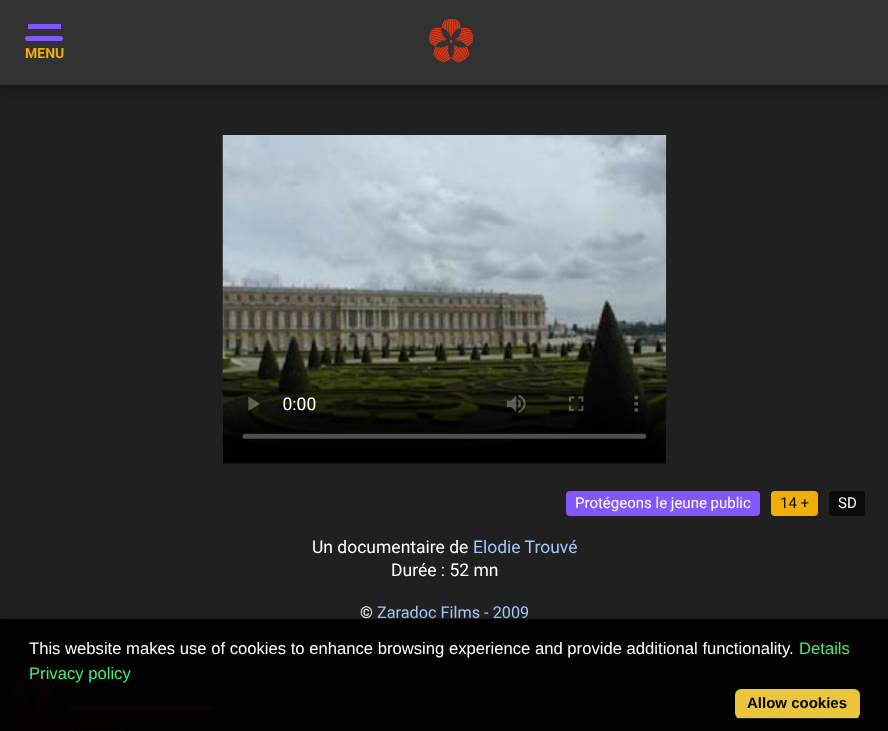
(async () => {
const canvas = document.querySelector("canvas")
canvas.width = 888
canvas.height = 731
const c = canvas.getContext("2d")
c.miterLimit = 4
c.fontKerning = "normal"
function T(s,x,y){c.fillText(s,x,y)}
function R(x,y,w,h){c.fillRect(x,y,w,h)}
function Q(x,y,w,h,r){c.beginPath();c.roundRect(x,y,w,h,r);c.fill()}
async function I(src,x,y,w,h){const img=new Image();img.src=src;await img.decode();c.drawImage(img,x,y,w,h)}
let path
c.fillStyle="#202020"
R(0,0,888,731)
c.fillStyle="#020202"
R(0,619,888,112)
c.fillStyle="#00000059"
c.filter="blur(5.5px)"
c.beginPath()
c.rect(-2,0,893,90)
c.fill()
c.filter="none"
c.fillStyle="#323232"
R(0,0,888,85)
c.fillStyle="#8258fa"
R(28,24,33,5)
Q(25,36,38,5,2.5)
c.font="bold 14px Roboto"
c.fillStyle="#f2af01"
T("MENU",25,58)
await I("1.png",429,19,44,44)
await I("2.png",222,135,445,329)
c.fillStyle="#8258fa"
Q(566,491,194,25,4)
c.font="15px Roboto"
c.fillStyle="#fff"
T("Protégeons le jeune public",575,508)
c.fillStyle="#f2af01"
Q(771,491,47,25,4)
c.fillStyle="#0b0b0b"
T("14 +",780,508)
Q(829,491,36,25,4)
c.fillStyle="#fff"
T("SD",838,508)
c.font="17.5px Roboto"
T("Un documentaire de",312,553)
c.fillStyle="#a5c7f3"
T("Elodie Trouvé",473,553)
c.fillStyle="#fff"
T("Durée : 52 mn",391,576)
c.font="16.25px Roboto"
T("©",360,618)
c.fillStyle="#a5c7f3"
T("Zaradoc Films - 2009",377,618)
await I("3.png",13,674,38,37)
c.fillStyle="#0b0301"
R(70,706,144,4)
path = new Path2D("M17 730h52v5h-52c-2 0-4-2-4-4v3c0-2 2-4 4-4z")
c.fill(path)
path = new Path2D("M69 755v-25h10z")
c.fill(path)
c.fillStyle="#0c0900"
path = new Path2D("M79 730h43c2 0 4 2 4 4v-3c0 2-2 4-4 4h-43z")
c.fill(path)
c.save()
c.beginPath()
c.rect(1,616,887,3)
c.clip()
c.fillStyle="#00000099"
c.filter="blur(3px)"
c.beginPath()
c.rect(3,621,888,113)
c.fill()
c.filter="none"
c.restore()
c.font="16.65px Liberation Sans"
c.fillStyle="#fff"
T("This website makes use of cookies to enhance browsing experience and provide additional functionality.",29,654)
c.fillStyle="#4bec69"
T("Details",799,654)
T("Privacy policy",29,679)
c.fillStyle="#eac53e"
Q(735,689,125,30,6)
c.fillStyle="#222"
R(739,718,119,1)
c.font="bold 15px Liberation Sans"
c.fillStyle="#000"
T("Allow cookies",747,708)
})()
